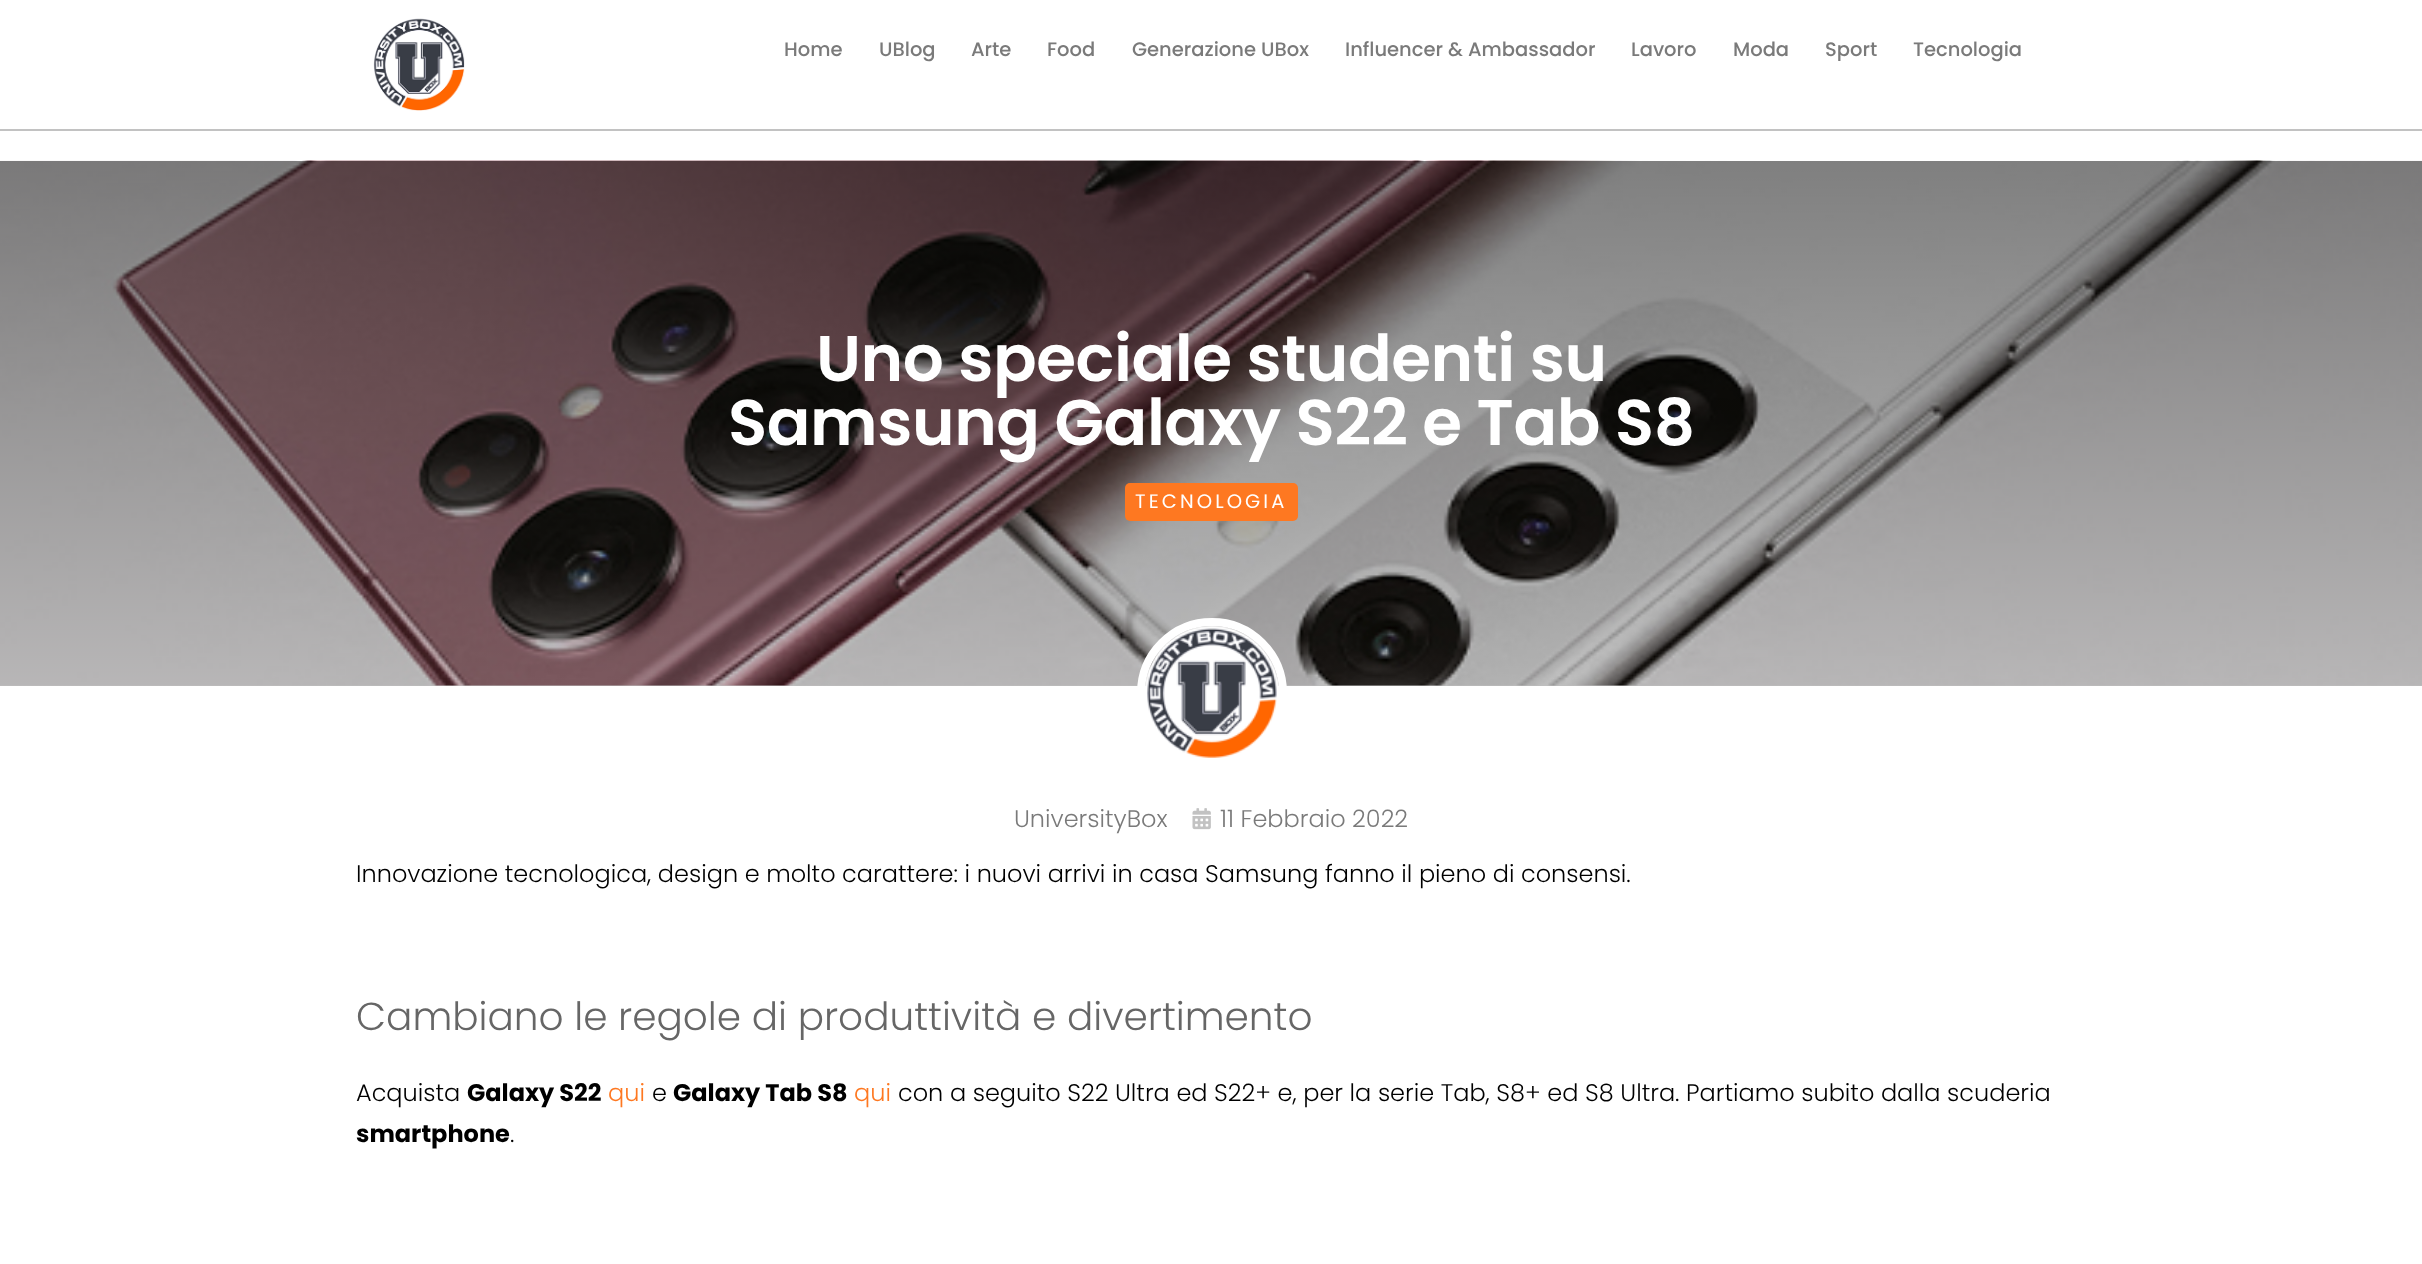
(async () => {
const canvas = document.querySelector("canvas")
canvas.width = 2422
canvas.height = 1264
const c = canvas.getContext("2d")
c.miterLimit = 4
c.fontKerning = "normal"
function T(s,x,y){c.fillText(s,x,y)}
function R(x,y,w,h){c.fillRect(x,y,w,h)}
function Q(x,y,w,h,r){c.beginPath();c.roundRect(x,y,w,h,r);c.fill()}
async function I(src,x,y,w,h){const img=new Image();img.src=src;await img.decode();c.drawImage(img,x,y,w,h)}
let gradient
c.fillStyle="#fff"
R(0,0,2422,1264)
c.fillStyle="#c2c2c2"
R(0,129,2422,2)
await I("1.png",373,18,92,93)
c.font="500 19.5px Poppins"
c.fillStyle="#7a7a7a"
T("Home",784,56)
T("UBlog",879,56)
T("Arte",971,56)
T("Food",1047,56)
T("Generazione UBox",1132,56)
T("Influencer & Ambassador",1345,56)
T("Lavoro",1631,56)
T("Moda",1733,56)
T("Sport",1825,56)
T("Tecnologia",1913,56)
await I("2.png",0,160,2422,526)
gradient = c.createLinearGradient(1211,160,1211,686)
gradient.addColorStop(0,"#00000080")
gradient.addColorStop(1,"#00000040")
c.fillStyle = gradient
R(0,161,2422,525)
c.letterSpacing="-0.45px"
c.font="600 64.5px Poppins"
c.fillStyle="#fff"
T("Uno speciale studenti su",816,381)
T("Samsung Galaxy S22 e Tab S8",728,445)
c.fillStyle="#fe7821"
Q(1125,483,173,38,5)
c.letterSpacing="3.1px"
c.font="19.5px Poppins"
c.fillStyle="#fff"
T("TECNOLOGIA",1135,508)
c.beginPath()
c.arc(1212,693,71,0,7)
c.strokeStyle="#fff"
c.lineWidth=8
c.stroke()
await I("3.png",1145,626,134,132)
c.letterSpacing="0px"
c.font="300 24px Poppins"
c.fillStyle="#7a7a7a"
T("UniversityBox",1014,827)
await I("4.png",1192,808,19,22)
T("11 Febbraio 2022",1220,827)
c.fillStyle="#000"
T("Innovazione tecnologica, design e molto carattere: i nuovi arrivi in casa Samsung fanno il pieno di consensi.",356,882)
c.font="300 39px Poppins"
c.fillStyle="#666"
T("Cambiano le regole di produttività e divertimento",356,1030)
c.font="300 24px Poppins"
c.fillStyle="#000"
T("Acquista",356,1101)
c.font="bold 24px Poppins"
T("Galaxy S22",467,1101)
c.font="300 24px Poppins"
c.fillStyle="#fe7821"
T("qui",608,1101)
c.fillStyle="#000"
T("e",652,1101)
c.font="bold 24px Poppins"
T("Galaxy Tab S8",673,1101)
c.font="300 24px Poppins"
c.fillStyle="#fe7821"
T("qui",854,1101)
c.fillStyle="#000"
T("con a seguito S22 Ultra ed S22+ e, per la serie Tab, S8+ ed S8 Ultra. Partiamo subito dalla scuderia",898,1101)
c.font="bold 24px Poppins"
T("smartphone",356,1142)
c.font="300 24px Poppins"
T(".",510,1142)
})()
